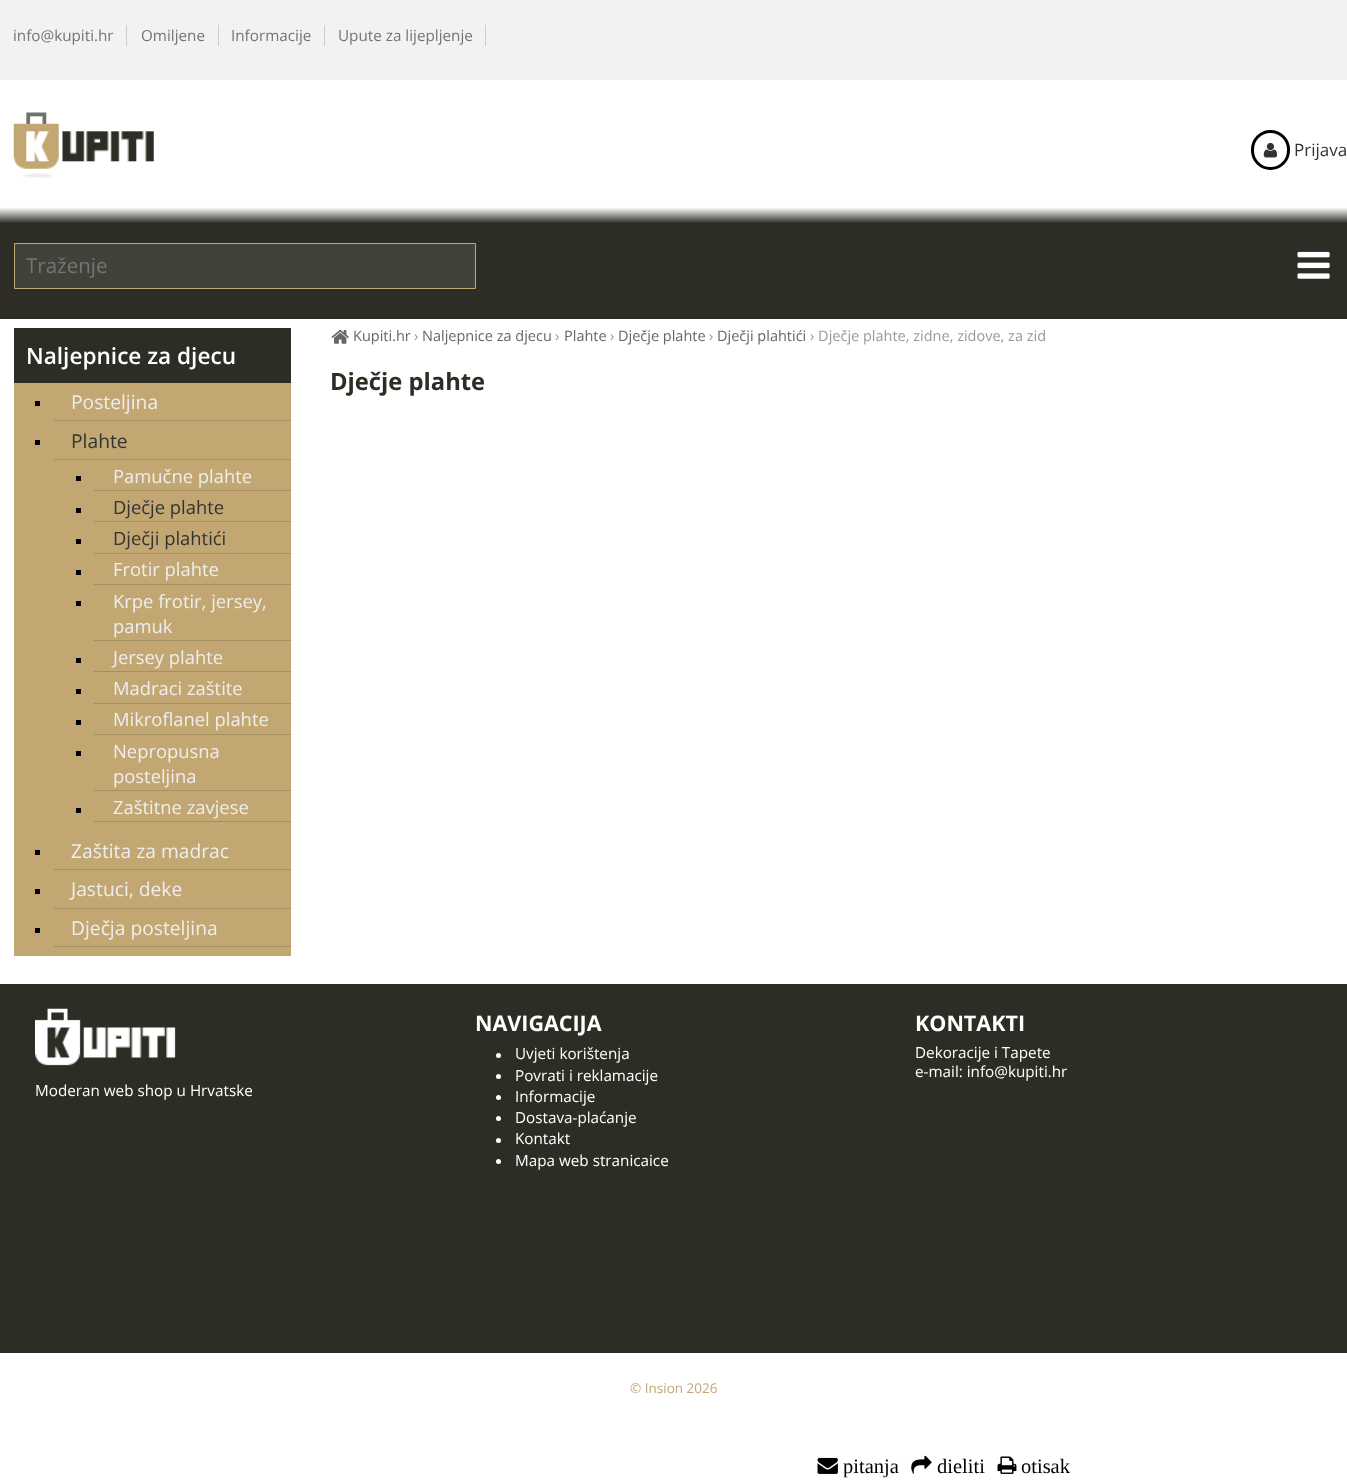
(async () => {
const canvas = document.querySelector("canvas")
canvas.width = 1347
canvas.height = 1484
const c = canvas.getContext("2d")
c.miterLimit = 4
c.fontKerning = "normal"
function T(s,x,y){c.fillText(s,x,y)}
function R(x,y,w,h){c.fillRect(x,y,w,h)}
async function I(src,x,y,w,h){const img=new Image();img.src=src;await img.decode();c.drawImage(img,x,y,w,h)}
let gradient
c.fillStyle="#fff"
R(0,0,1347,1484)
gradient = c.createLinearGradient(674,0,674,319)
gradient.addColorStop(0,"#f2f2f2")
gradient.addColorStop(.25,"#f2f2f2")
gradient.addColorStop(.25,"#fff")
gradient.addColorStop(.65,"#fff")
gradient.addColorStop(.7,"#2e2d25")
gradient.addColorStop(1,"#2e2d25")
c.fillStyle = gradient
R(0,0,1347,319)
c.font="15.25px Open Sans"
c.fillStyle="#757575"
T("info@kupiti.hr",13,41)
c.fillStyle="#ccc"
R(126,25,1,21)
c.fillStyle="#757575"
T("Omiljene",141,41)
c.fillStyle="#ccc"
R(218,25,1,21)
c.fillStyle="#757575"
T("Informacije",231,41)
c.fillStyle="#ccc"
R(324,25,1,21)
c.fillStyle="#757575"
T("Upute za lijepljenje",338,41)
c.fillStyle="#ccc"
R(485,25,1,21)
await I("1.png",13,112,141,66)
c.beginPath()
c.roundRect(1252.5,131.5,36,37,18)
c.strokeStyle="#000"
c.lineWidth=3
c.stroke()
await I("2.png",1263,142,15,16)
c.font="17px Open Sans"
c.fillStyle="#333"
T("Prijava",1294,156)
c.fillStyle="#42423b"
c.beginPath()
c.rect(14.5,243.5,461,45)
c.fill()
c.strokeStyle="#c2a773"
c.lineWidth=1
c.stroke()
c.font="20.5px Open Sans"
c.fillStyle="#757575"
T("Traženje",26,273)
await I("3.png",1297,251,33,28)
await I("4.png",331,330,18,14)
c.font="14.5px Open Sans"
c.fillStyle="#666"
T("Kupiti.hr",353,341)
c.fillStyle="#999"
T("›",414,341)
c.fillStyle="#666"
T("Naljepnice za djecu",422,341)
c.fillStyle="#999"
T("›",555,341)
c.fillStyle="#666"
T("Plahte",564,341)
c.fillStyle="#999"
T("›",610,341)
c.fillStyle="#666"
T("Dječje plahte",618,341)
c.fillStyle="#999"
T("›",709,341)
c.fillStyle="#666"
T("Dječji plahtići",717,341)
c.fillStyle="#999"
T("› Dječje plahte, zidne, zidove, za zid",810,341)
c.fillStyle="#2e2d25"
R(14,328,277,55)
c.font="600 22.6px Open Sans"
c.fillStyle="#fff"
T("Naljepnice za djecu",26,364)
c.fillStyle="#c2a773"
R(14,383,277,573)
c.fillStyle="#000"
R(35,401,5,5)
c.fillStyle="#a48f63"
R(54,420,237,1)
c.font="19.25px Open Sans"
c.fillStyle="#eee"
T("Posteljina",71,409)
c.fillStyle="#000"
R(35,440,5,5)
c.fillStyle="#a48f63"
R(54,459,237,1)
c.fillStyle="#333"
T("Plahte",71,448)
c.fillStyle="#000"
R(76,476,5,5)
c.fillStyle="#a48f63"
R(94,490,197,1)
c.font="18.4px Open Sans"
c.fillStyle="#eee"
T("Pamučne plahte",113,483)
c.fillStyle="#000"
R(76,508,5,5)
c.fillStyle="#a48f63"
R(94,521,197,1)
c.fillStyle="#333"
T("Dječje plahte",113,514)
c.fillStyle="#000"
R(76,539,5,5)
c.fillStyle="#a48f63"
R(94,553,197,1)
c.fillStyle="#333"
T("Dječji plahtići",113,545)
c.fillStyle="#000"
R(76,570,5,5)
c.fillStyle="#a48f63"
R(94,584,197,1)
c.fillStyle="#eee"
T("Frotir plahte",113,576)
c.fillStyle="#000"
R(76,601,5,5)
c.fillStyle="#a48f63"
R(94,640,197,1)
c.fillStyle="#eee"
T("Krpe frotir, jersey,",113,608)
T("pamuk",113,633)
c.fillStyle="#000"
R(76,658,5,5)
c.fillStyle="#a48f63"
R(94,671,197,1)
c.fillStyle="#eee"
T("Jersey plahte",113,664)
c.fillStyle="#000"
R(76,689,5,5)
c.fillStyle="#a48f63"
R(94,703,197,1)
c.fillStyle="#eee"
T("Madraci zaštite",113,695)
c.fillStyle="#000"
R(76,720,5,5)
c.fillStyle="#a48f63"
R(94,734,197,1)
c.fillStyle="#eee"
T("Mikroflanel plahte",113,726)
c.fillStyle="#000"
R(76,751,5,5)
c.fillStyle="#a48f63"
R(94,790,197,1)
c.fillStyle="#eee"
T("Nepropusna",113,758)
T("posteljina",113,783)
c.fillStyle="#000"
R(76,808,5,5)
c.fillStyle="#a48f63"
R(94,821,197,1)
c.fillStyle="#eee"
T("Zaštitne zavjese",113,814)
c.fillStyle="#000"
R(35,850,5,5)
c.fillStyle="#a48f63"
R(54,869,237,1)
c.font="19.25px Open Sans"
c.fillStyle="#eee"
T("Zaštita za madrac",71,858)
c.fillStyle="#000"
R(35,889,5,5)
c.fillStyle="#a48f63"
R(54,908,237,1)
c.fillStyle="#eee"
T("Jastuci, deke",71,896)
c.fillStyle="#000"
R(35,928,5,5)
c.fillStyle="#a48f63"
R(54,946,237,1)
c.fillStyle="#eee"
T("Dječja posteljina",71,935)
c.font="bold 23.75px Open Sans"
c.fillStyle="#2e2d25"
T("Dječje plahte",330,390)
R(0,984,1347,369)
c.font="bold 21.5px Open Sans"
c.fillStyle="#fff"
T("NAVIGACIJA",475,1031)
c.beginPath()
c.arc(498.5,1055.5,2.5,0,7)
c.fill()
c.font="15.25px Open Sans"
T("Uvjeti korištenja",515,1059)
c.beginPath()
c.arc(498.5,1076.5,2.5,0,7)
c.fill()
T("Povrati i reklamacije",515,1081)
c.beginPath()
c.arc(498.5,1097.5,2.5,0,7)
c.fill()
T("Informacije",515,1102)
c.beginPath()
c.arc(498.5,1118.5,2.5,0,7)
c.fill()
T("Dostava-plaćanje",515,1123)
c.beginPath()
c.arc(498.5,1140.5,2.5,0,7)
c.fill()
T("Kontakt",515,1144)
c.beginPath()
c.arc(498.5,1161.5,2.5,0,7)
c.fill()
T("Mapa web stranicaice",515,1166)
c.font="bold 21.5px Open Sans"
T("KONTAKTI",915,1031)
c.font="15.25px Open Sans"
T("Dekoracije i Tapete",915,1058)
T("e-mail: info@kupiti.hr",915,1077)
await I("5.png",35,1008,141,58)
T("Moderan web shop u Hrvatske",35,1096)
c.font="13.5px Open Sans"
c.fillStyle="#c2a773"
T("© Insion 2026",630,1393)
await I("6.png",817,1457,21,17)
c.font="20.5px Liberation Serif"
c.fillStyle="#000"
T("pitanja",843,1473)
await I("7.png",911,1455,21,19)
T("dieliti",937,1473)
await I("8.png",997,1456,20,18)
T("otisak",1021,1473)
})()
